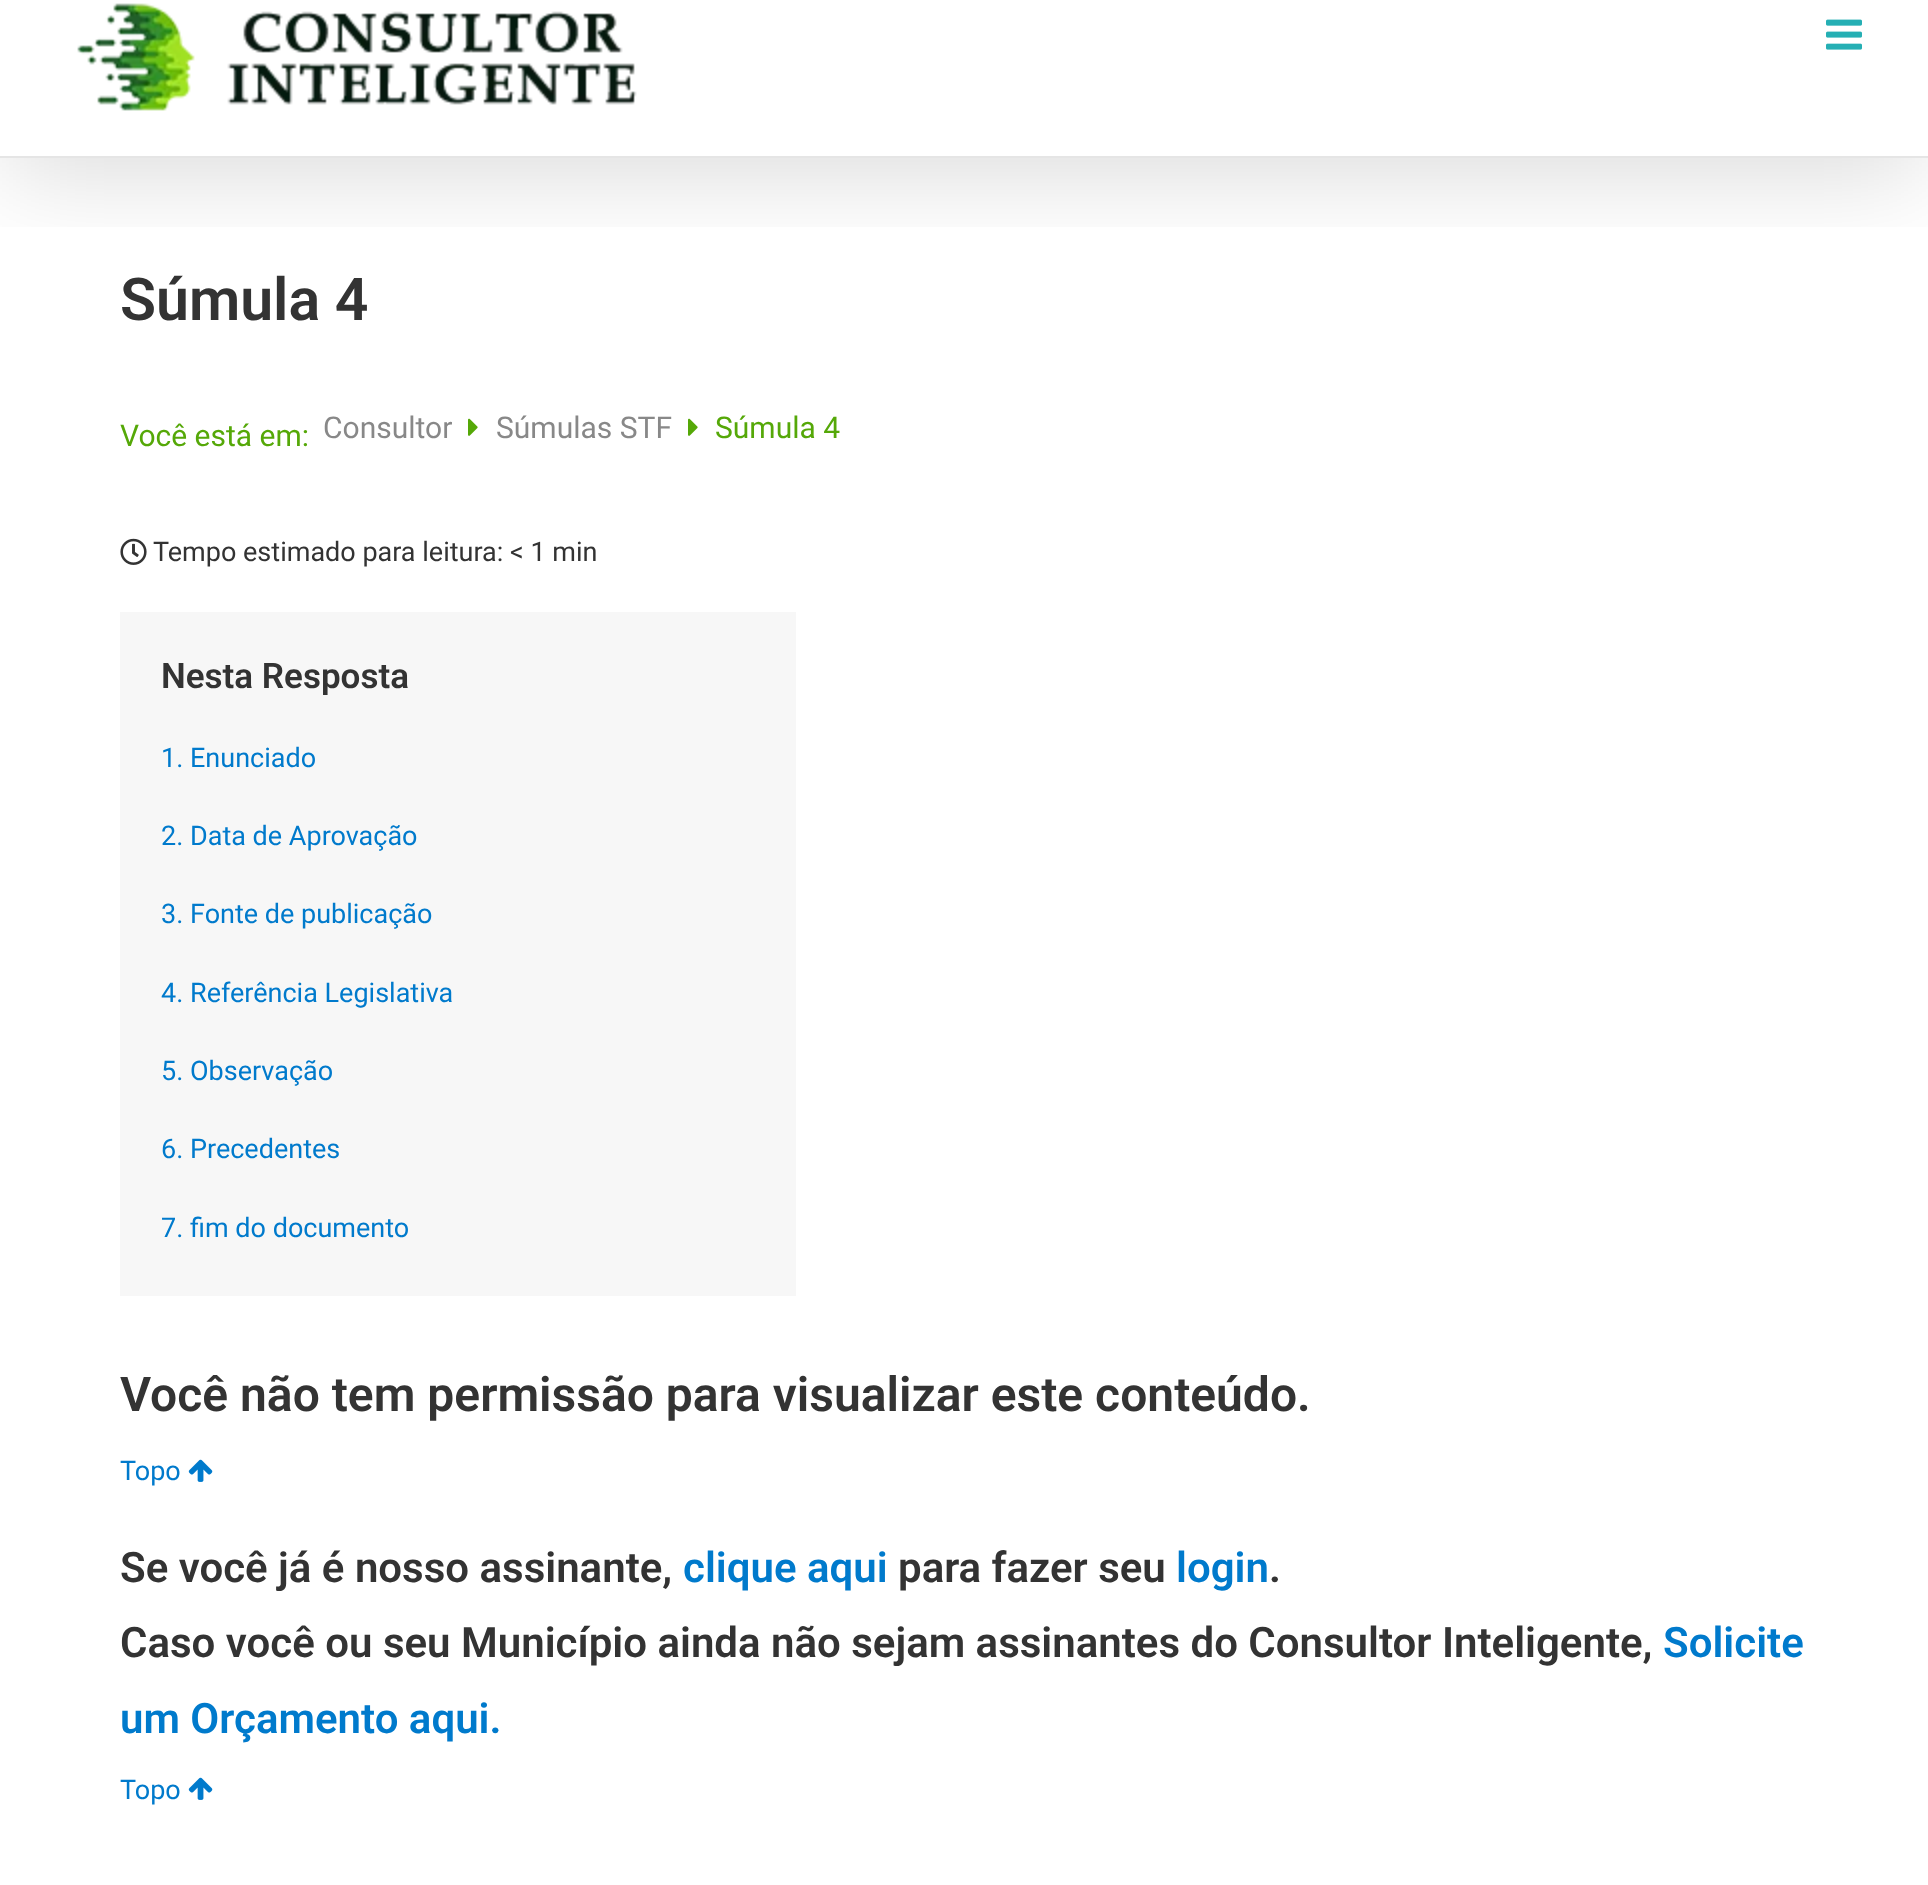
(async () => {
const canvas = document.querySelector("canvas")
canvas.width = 1928
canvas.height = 1885
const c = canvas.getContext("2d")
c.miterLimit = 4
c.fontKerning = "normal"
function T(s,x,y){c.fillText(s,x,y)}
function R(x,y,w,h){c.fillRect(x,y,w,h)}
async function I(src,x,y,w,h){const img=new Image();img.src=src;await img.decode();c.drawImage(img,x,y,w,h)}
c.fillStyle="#fff"
R(0,0,1928,1885)
c.save()
c.beginPath()
c.rect(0,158,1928,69)
c.clip()
c.fillStyle="#00000024"
c.filter="blur(50px)"
c.beginPath()
c.rect(4,-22,1920,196)
c.fill()
c.filter="none"
c.restore()
c.fillStyle="#e5e5e5"
R(0,156,1928,2)
await I("1.png",77,3,560,108)
await I("2.png",1826,19,36,31)
c.font="600 59px Roboto"
c.fillStyle="#333"
T("Súmula 4",120,320)
c.font="30px Roboto"
c.fillStyle="#55a808"
T("Você está em:",120,446)
c.fillStyle="#888"
T("Consultor",323,438)
await I("3.png",468,418,10,18)
T("Súmulas STF",496,438)
await I("3.png",688,418,10,18)
c.fillStyle="#55a808"
T("Súmula 4",715,438)
await I("4.png",120,538,27,27)
c.font="27px Roboto"
c.fillStyle="#333"
T("Tempo estimado para leitura: < 1 min",153,561)
c.fillStyle="#f7f7f7"
R(120,612,676,684)
c.font="600 35px Roboto"
c.fillStyle="#333"
T("Nesta Resposta",161,688)
c.font="27px Roboto"
c.fillStyle="#007acc"
T("1. Enunciado",161,767)
T("2. Data de Aprovação",161,845)
T("3. Fonte de publicação",161,923)
T("4. Referência Legislativa",161,1002)
T("5. Observação",161,1080)
T("6. Precedentes",161,1158)
T("7. fim do documento",161,1237)
c.font="600 48px Roboto"
c.fillStyle="#333"
T("Você não tem permissão para visualizar este conteúdo.",120,1411)
c.font="27px Roboto"
c.fillStyle="#007acc"
T("Topo",120,1480)
await I("5.png",188,1459,25,23)
c.font="600 42px Roboto"
c.fillStyle="#333"
T("Se você já é nosso assinante,",120,1582)
c.fillStyle="#007acc"
T("clique aqui",683,1582)
c.fillStyle="#333"
T("para fazer seu",898,1582)
c.fillStyle="#007acc"
T("login",1176,1582)
c.fillStyle="#333"
T(".",1269,1582)
T("Caso você ou seu Município ainda não sejam assinantes do Consultor Inteligente,",120,1657)
c.fillStyle="#007acc"
T("Solicite",1663,1657)
T("um Orçamento aqui.",120,1733)
c.font="27px Roboto"
T("Topo",120,1799)
await I("5.png",188,1777,25,23)
})()
